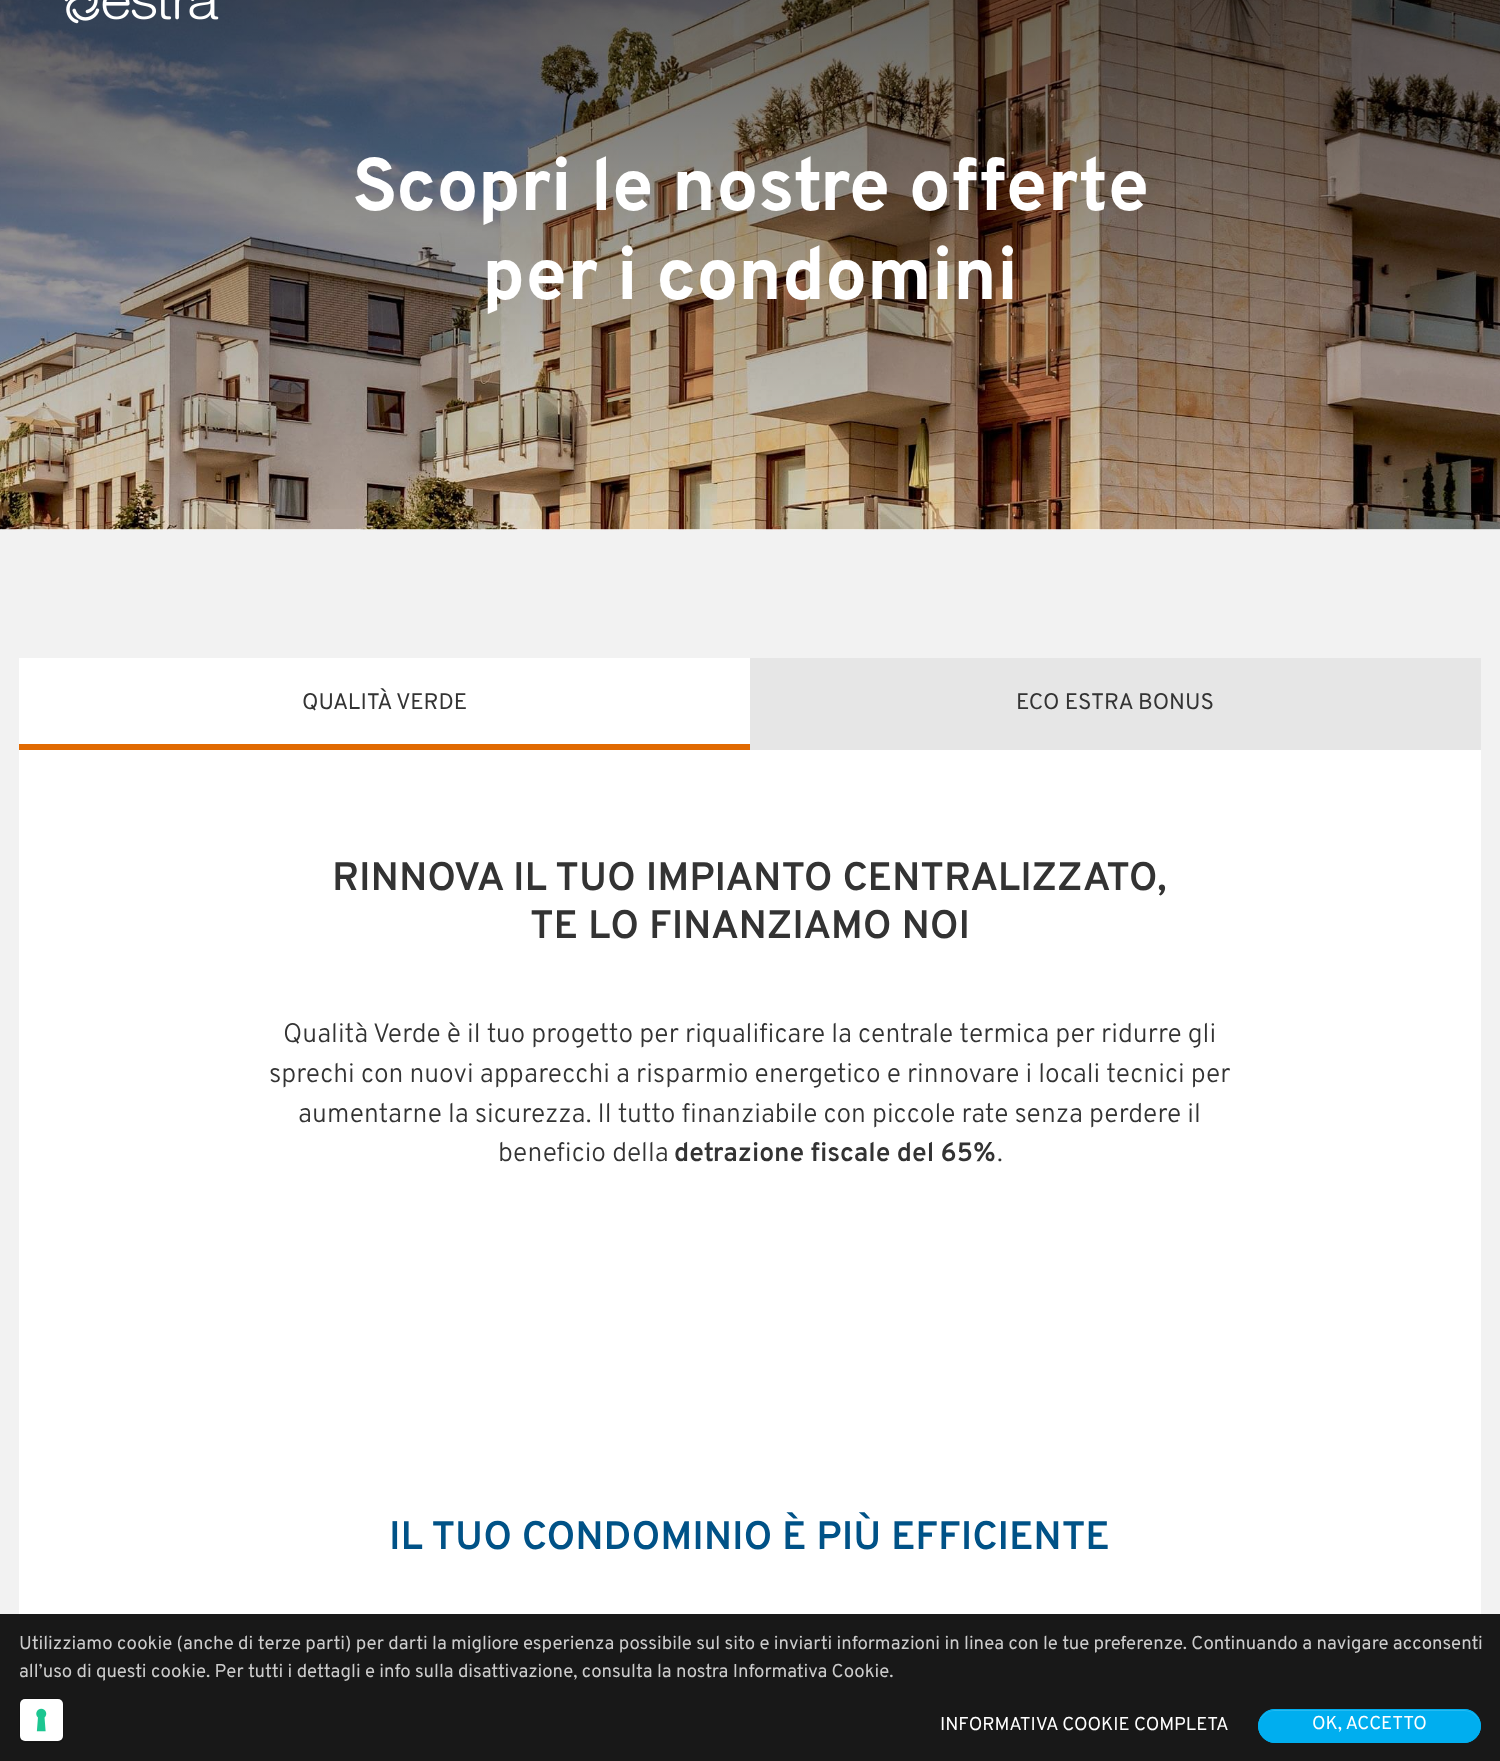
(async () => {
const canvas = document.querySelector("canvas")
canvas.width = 1500
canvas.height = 1761
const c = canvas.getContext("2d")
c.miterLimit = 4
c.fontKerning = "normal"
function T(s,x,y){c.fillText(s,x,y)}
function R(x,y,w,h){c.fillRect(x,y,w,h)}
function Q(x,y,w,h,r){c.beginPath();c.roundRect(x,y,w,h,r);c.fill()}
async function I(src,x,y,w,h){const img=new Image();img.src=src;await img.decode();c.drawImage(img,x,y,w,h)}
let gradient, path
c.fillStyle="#fff"
R(0,0,1500,1761)
await I("2.png",0,0,1500,530)
gradient = c.createLinearGradient(750,-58,750,530)
gradient.addColorStop(0,"#00000099")
gradient.addColorStop(1,"#00000000")
c.fillStyle = gradient
R(0,0,1500,509)
await I("1.png",64,0,155,24)
c.font="bold 74.4px Overpass"
c.fillStyle="#fff"
T("Scopri le nostre offerte",352,210)
T("per i condomini",482,299)
c.fillStyle="#f2f2f2"
R(0,530,1500,1084)
c.fillStyle="#181818"
R(0,1614,1500,147)
c.fillStyle="#fff"
R(19,658,731,86)
c.fillStyle="#e16a02"
R(19,744,731,6)
c.font="22.5px Overpass"
c.fillStyle="#333"
T("QUALITÀ VERDE",302,709)
c.fillStyle="#e6e6e6"
R(750,658,731,92)
c.fillStyle="#333"
T("ECO ESTRA BONUS",1016,709)
c.fillStyle="#fff"
R(19,750,1462,864)
c.font="600 39.8px Overpass"
c.fillStyle="#333"
T("RINNOVA IL TUO IMPIANTO CENTRALIZZATO,",332,890)
T("TE LO FINANZIAMO NOI",530,938)
c.font="300 26.55px Overpass"
T("Qualità Verde è il tuo progetto per riqualificare la centrale termica per ridurre gli",283,1042)
T("sprechi con nuovi apparecchi a risparmio energetico e rinnovare i locali tecnici per",269,1082)
T("aumentarne la sicurezza. Il tutto finanziabile con piccole rate senza perdere il",298,1122)
T("beneficio della",498,1161)
c.font="600 26.55px Overpass"
T("detrazione fiscale del 65%",674,1161)
c.font="300 26.55px Overpass"
T(".",997,1161)
c.font="600 39.8px Overpass"
c.fillStyle="#005287"
T("IL TUO CONDOMINIO È PIÙ EFFICIENTE",389,1549)
c.font="18.6px Overpass"
c.fillStyle="#ccc"
T("Utilizziamo cookie (anche di terze parti) per darti la migliore esperienza possibile sul sito e inviarti informazioni in linea con le tue preferenze. Continuando a navigare acconsenti",19,1649)
T("all’uso di questi cookie. Per tutti i dettagli e info sulla disattivazione, consulta la nostra Informativa Cookie.",19,1677)
c.fillStyle="#fff"
T("INFORMATIVA COOKIE COMPLETA",940,1730)
c.fillStyle="#00aeef"
Q(1258,1709,223,34,17)
c.fillStyle="#26baf1"
path = new Path2D("M1274 1711h190c9 0 16 7 16 15c1-23-37-16-47-16h-127c-10 0-48-7-47 16c0-8 7-15 15-15z")
c.fill(path)
c.beginPath()
c.roundRect(1258.5,1709.5,222,33,16.5)
c.strokeStyle="#00aeef"
c.stroke()
c.fillStyle="#fff"
T("OK, ACCETTO",1312,1729)
c.beginPath()
c.roundRect(19.5,1698.5,44,44,5.5)
c.strokeStyle="#00000026"
c.stroke()
Q(20,1699,43,42,5)
await I("3.png",36,1708,11,24)
})()
